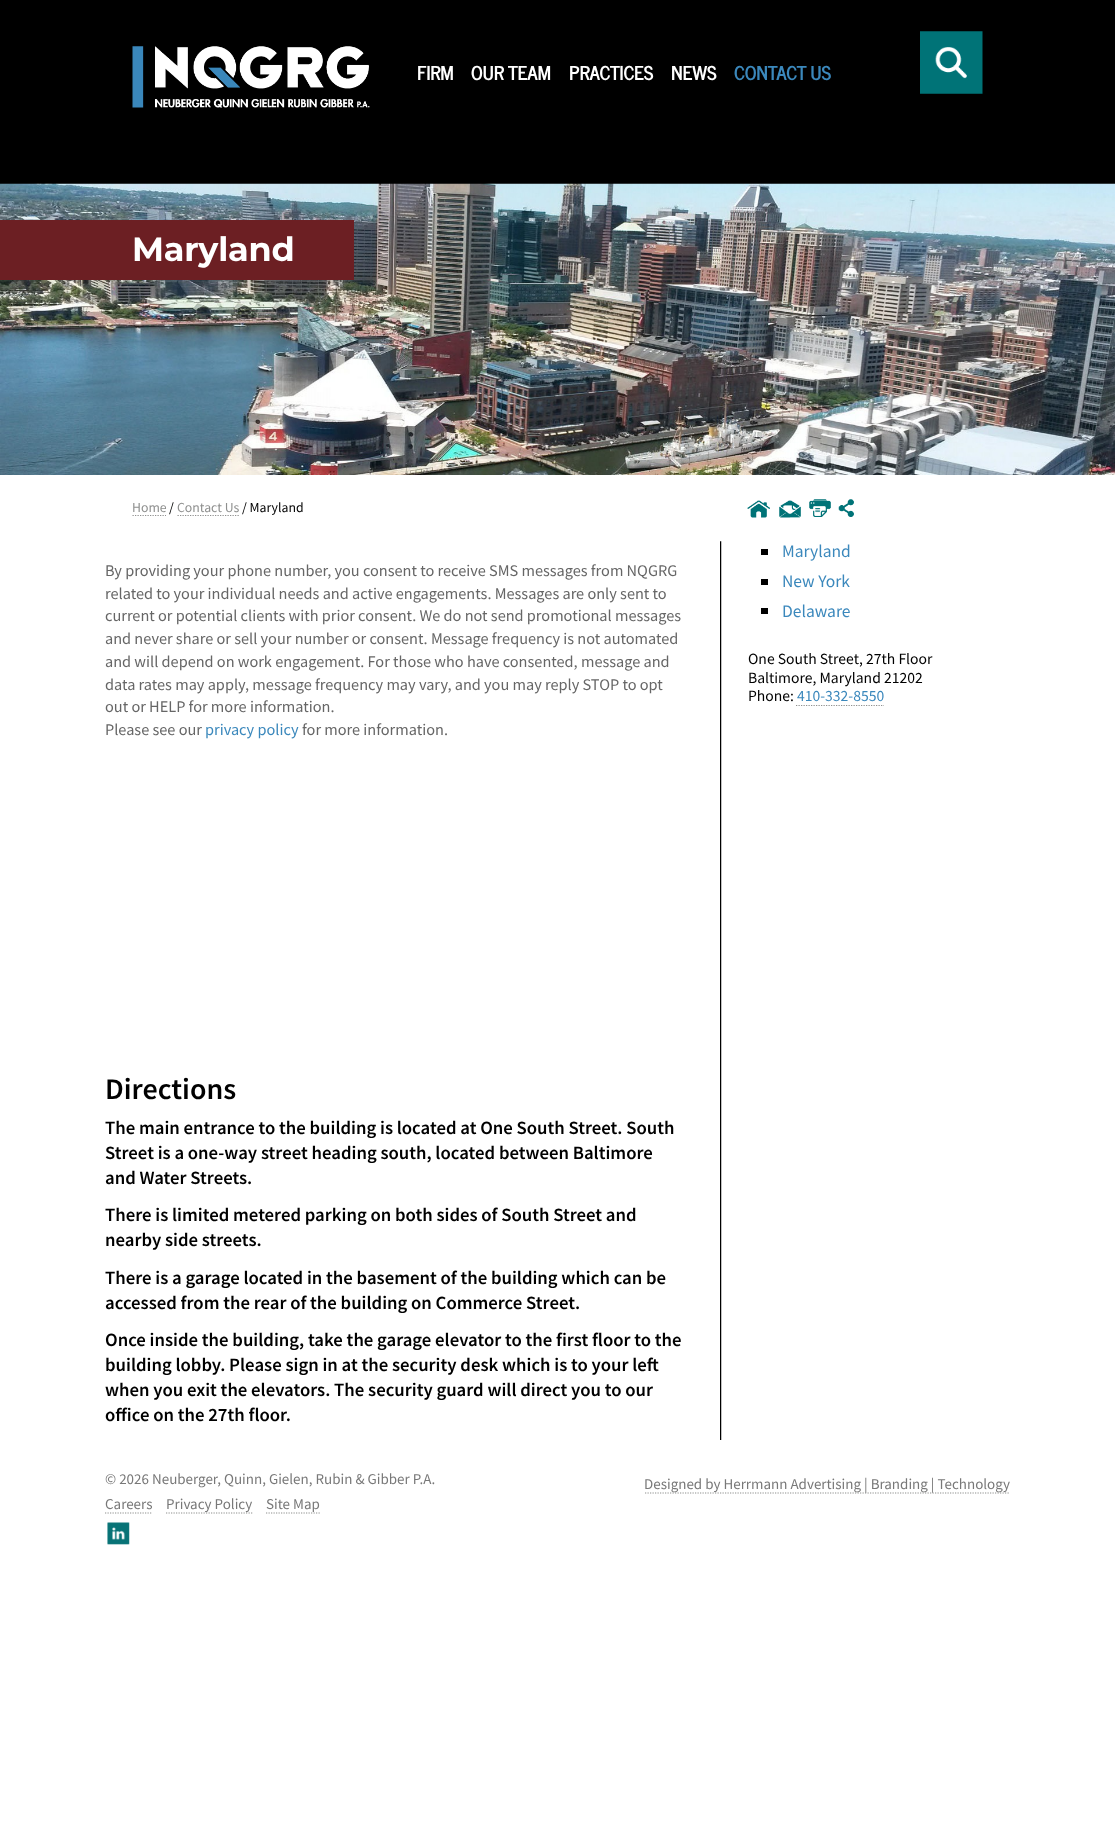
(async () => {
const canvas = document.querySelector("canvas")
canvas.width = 1115
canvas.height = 1840
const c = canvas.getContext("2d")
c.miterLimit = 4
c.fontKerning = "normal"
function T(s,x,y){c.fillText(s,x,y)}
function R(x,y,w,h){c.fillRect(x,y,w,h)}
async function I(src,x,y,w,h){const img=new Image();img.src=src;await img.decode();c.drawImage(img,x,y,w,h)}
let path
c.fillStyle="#fff"
R(0,0,1115,1840)
c.fillStyle="#000"
R(0,0,1115,184)
await I("1.png",132,46,238,62)
c.letterSpacing="-0.25px"
c.font="bold 19px News Cycle"
c.fillStyle="#fff"
T("FIRM",417,80)
T("OUR TEAM",471,80)
T("PRACTICES",569,80)
T("NEWS",671,80)
c.fillStyle="#3b88bc"
T("CONTACT US",734,80)
await I("2.png",920,31,63,63)
await I("3.png",0,183,1115,292)
c.fillStyle="#6c1f23"
R(0,220,354,60)
c.font="bold 33.5px Montserrat"
c.fillStyle="#fff"
T("Maryland",132,261)
c.letterSpacing="0px"
c.font="13.75px Source Sans Pro"
c.fillStyle="#8e8f8e"
T("Home",132,512)
path = new Path2D("M132.5 515.5h33.5")
c.strokeStyle="#8e8f8e"
c.lineWidth=1.2
c.setLineDash([1.25,1.25])
c.stroke(path)
c.fillStyle="#000"
T("/",169,512)
c.fillStyle="#8e8f8e"
T("Contact Us",177,512)
path = new Path2D("M177.5 515.5h61.5")
c.stroke(path)
c.fillStyle="#000"
T("/ Maryland",242,512)
await I("4.png",747,500,23,18)
await I("5.png",779,500,22,18)
await I("6.png",809,499,22,18)
await I("7.png",838,499,16,18)
await I("8.png",720,541,2,899)
c.font="16.25px Source Sans Pro"
c.fillStyle="#666"
T("By providing your phone number, you consent to receive SMS messages from NQGRG",105,576)
T("related to your individual needs and active engagements. Messages are only sent to",105,599)
T("current or potential clients with prior consent. We do not send promotional messages",105,621)
T("and never share or sell your number or consent. Message frequency is not automated",105,644)
T("and will depend on work engagement. For those who have consented, message and",105,667)
T("data rates may apply, message frequency may vary, and you may reply STOP to opt",105,690)
T("out or HELP for more information.",105,712)
T("Please see our",105,735)
c.fillStyle="#3b88bc"
T("privacy policy",205,735)
c.fillStyle="#666"
T("for more information.",302,735)
c.font="600 30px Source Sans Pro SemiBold"
c.fillStyle="#000"
T("Directions",105,1099)
c.font="600 18.75px Source Sans Pro SemiBold"
T("The main entrance to the building is located at One South Street. South",105,1134)
T("Street is a one-way street heading south, located between Baltimore",105,1159)
T("and Water Streets.",105,1184)
T("There is limited metered parking on both sides of South Street and",105,1221)
T("nearby side streets.",105,1246)
T("There is a garage located in the basement of the building which can be",105,1284)
T("accessed from the rear of the building on Commerce Street.",105,1309)
T("Once inside the building, take the garage elevator to the first floor to the",105,1346)
T("building lobby. Please sign in at the security desk which is to your left",105,1371)
T("when you exit the elevators. The security guard will direct you to our",105,1396)
T("office on the 27th floor.",105,1421)
R(761,549,7,6)
c.font="17.5px Source Sans Pro"
c.fillStyle="#3b88bc"
T("Maryland",782,557)
c.fillStyle="#000"
R(761,579,7,6)
c.fillStyle="#3b88bc"
T("New York",782,587)
c.fillStyle="#000"
R(761,608,7,6)
c.fillStyle="#3b88bc"
T("Delaware",782,617)
c.font="15.6px Source Sans Pro"
c.fillStyle="#000"
T("One South Street, 27th Floor",748,664)
T("Baltimore, Maryland 21202",748,683)
T("Phone:",748,701)
c.fillStyle="#3b88bc"
T("410-332-8550",797,701)
path = new Path2D("M796 705.5h88")
c.stroke(path)
c.font="15px Source Sans Pro"
c.fillStyle="#787878"
T("© 2026 Neuberger, Quinn, Gielen, Rubin & Gibber P.A.",105,1484)
T("Careers",105,1509)
path = new Path2D("M105 1513h47.5")
c.stroke(path)
path = new Path2D("M166 1513h86.5")
c.stroke(path)
T("Privacy Policy",166,1509)
path = new Path2D("M266 1513h54")
c.stroke(path)
T("Site Map",266,1509)
await I("9.png",107,1522,23,23)
path = new Path2D("M645 1493h365")
c.stroke(path)
T("Designed by Herrmann Advertising | Branding | Technology",644,1489)
})()
